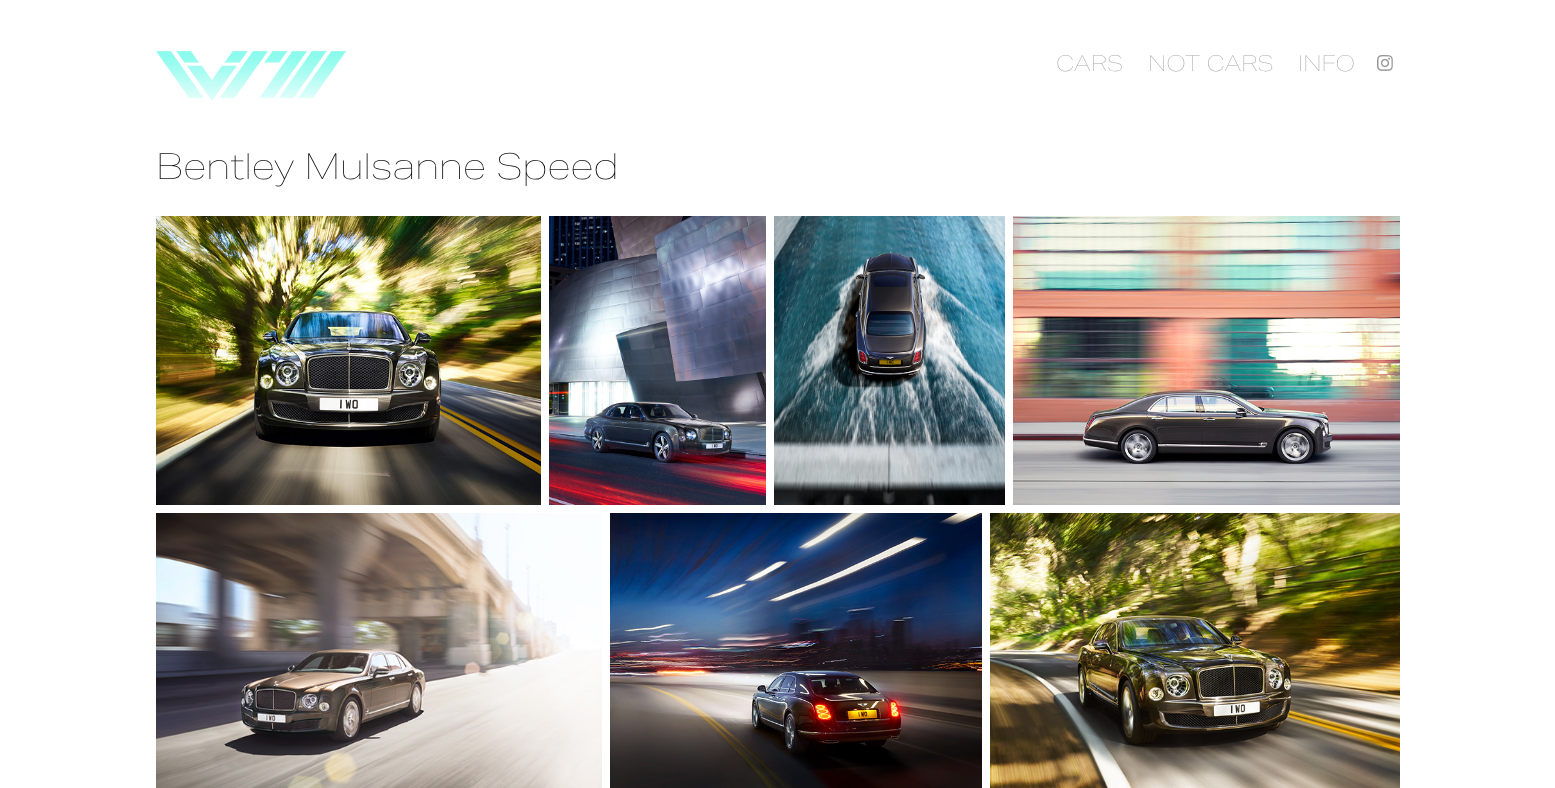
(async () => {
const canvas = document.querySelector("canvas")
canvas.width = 1555
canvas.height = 788
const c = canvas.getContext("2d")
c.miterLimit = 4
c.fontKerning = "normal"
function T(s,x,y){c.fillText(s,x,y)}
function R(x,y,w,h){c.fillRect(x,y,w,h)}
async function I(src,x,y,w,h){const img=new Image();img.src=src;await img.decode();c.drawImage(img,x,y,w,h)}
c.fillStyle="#fff"
R(0,0,1555,788)
await I("1.png",156,51,190,50)
c.font="300 22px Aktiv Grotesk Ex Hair"
c.fillStyle="#aaa"
T("CARS",1056,71)
T("NOT CARS",1148,71)
T("INFO",1298,71)
await I("2.png",1377,55,16,16)
c.font="300 36px Aktiv Grotesk Ex Hair"
c.fillStyle="#111"
T("Bentley Mulsanne Speed",156,179)
await I("3.png",156,216,385,289)
await I("4.png",549,216,217,289)
await I("5.png",774,216,231,289)
await I("6.png",1013,216,387,289)
await I("7.png",156,513,446,275)
await I("8.png",610,513,372,275)
await I("9.png",990,513,410,275)
})()
